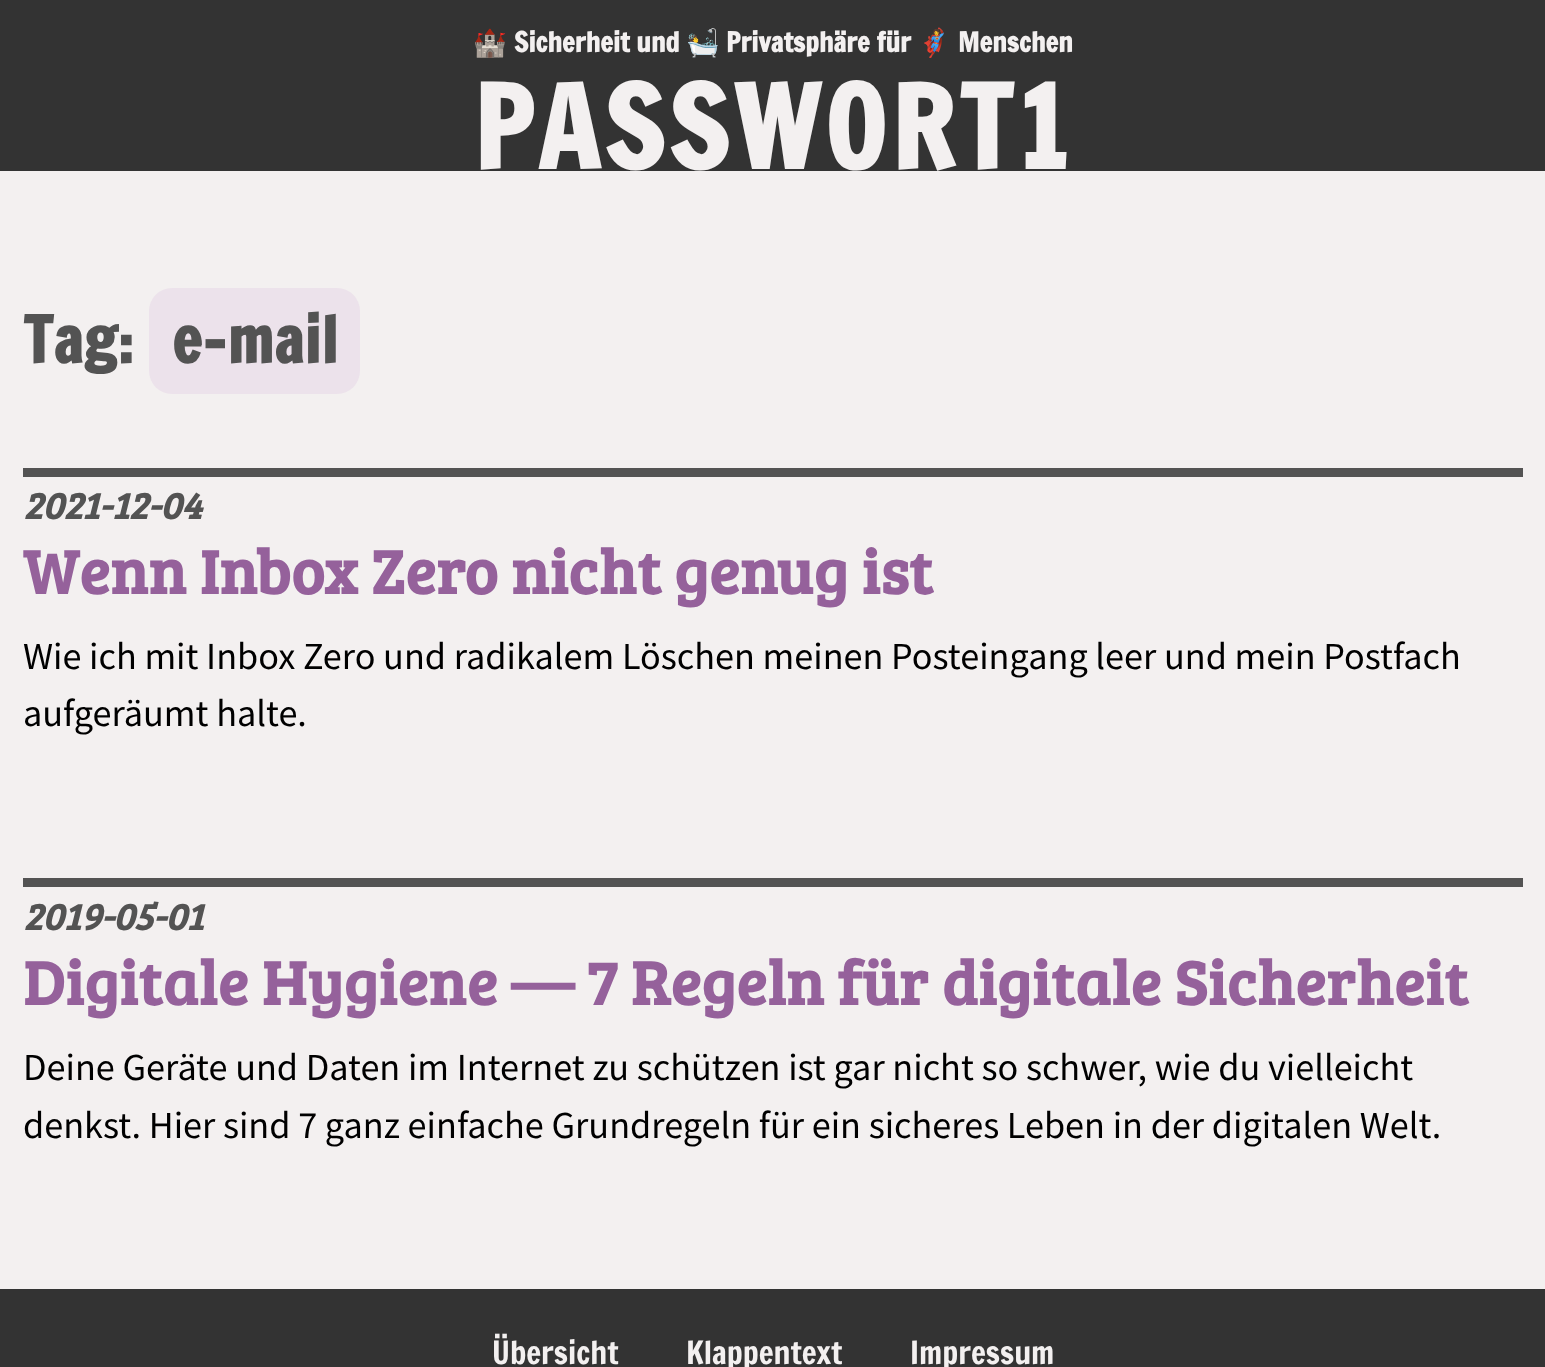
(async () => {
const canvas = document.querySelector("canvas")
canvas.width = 1545
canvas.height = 1367
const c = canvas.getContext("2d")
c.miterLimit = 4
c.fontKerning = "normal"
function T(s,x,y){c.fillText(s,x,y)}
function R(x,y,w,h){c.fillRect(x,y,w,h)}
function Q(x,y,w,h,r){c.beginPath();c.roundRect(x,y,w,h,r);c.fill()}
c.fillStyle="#333"
R(0,0,1545,1367)
c.font="bold 27px Noto Color Emoji"
c.fillStyle="#f3f0f0"
T("🏰",473,52)
c.font="bold 27px Francois One"
T("Sicherheit und",514,52)
c.font="bold 27px Noto Color Emoji"
T("🛀",686,52)
c.font="bold 27px Francois One"
T("Privatsphäre für",726,52)
c.font="bold 27px Noto Color Emoji"
T("🦸‍♀️",917,52)
c.font="bold 27px Francois One"
T("Menschen",958,52)
c.letterSpacing="4.5px"
c.font="bold 112.5px Francois One"
T("PASSWORT1",473,169)
R(0,171,1545,1118)
c.letterSpacing="0.45px"
c.font="bold 63px Francois One"
c.fillStyle="#535353"
T("Tag:",23,363)
c.fillStyle="#ece2eb"
Q(149,288,211,106,23)
c.fillStyle="#535353"
T("e-mail",172,363)
R(23,468,1500,9)
c.letterSpacing="0px"
c.font="italic bold 38.25px Bree Serif"
T("2021-12-04",23,519)
c.letterSpacing="0.45px"
c.font="bold 63px Bree Serif"
c.fillStyle="#95619b"
T("Wenn Inbox Zero nicht genug ist",23,594)
c.letterSpacing="0px"
c.font="38.25px Source Sans Pro"
c.fillStyle="#000"
T("Wie ich mit Inbox Zero und radikalem Löschen meinen Posteingang leer und mein Postfach",23,669)
T("aufgeräumt halte.",23,726)
c.fillStyle="#535353"
R(23,878,1500,9)
c.font="italic bold 38.25px Bree Serif"
T("2019-05-01",23,930)
c.letterSpacing="0.45px"
c.font="bold 63px Bree Serif"
c.fillStyle="#95619b"
T("Digitale Hygiene — 7 Regeln für digitale Sicherheit",23,1005)
c.letterSpacing="0px"
c.font="38.25px Source Sans Pro"
c.fillStyle="#000"
T("Deine Geräte und Daten im Internet zu schützen ist gar nicht so schwer, wie du vielleicht",23,1080)
T("denkst. Hier sind 7 ganz einfache Grundregeln für ein sicheres Leben in der digitalen Welt.",23,1138)
c.font="31.5px Francois One"
c.fillStyle="#f3f0f0"
T("Übersicht",492,1364)
T("Klappentext",686,1364)
T("Impressum",910,1364)
})()
